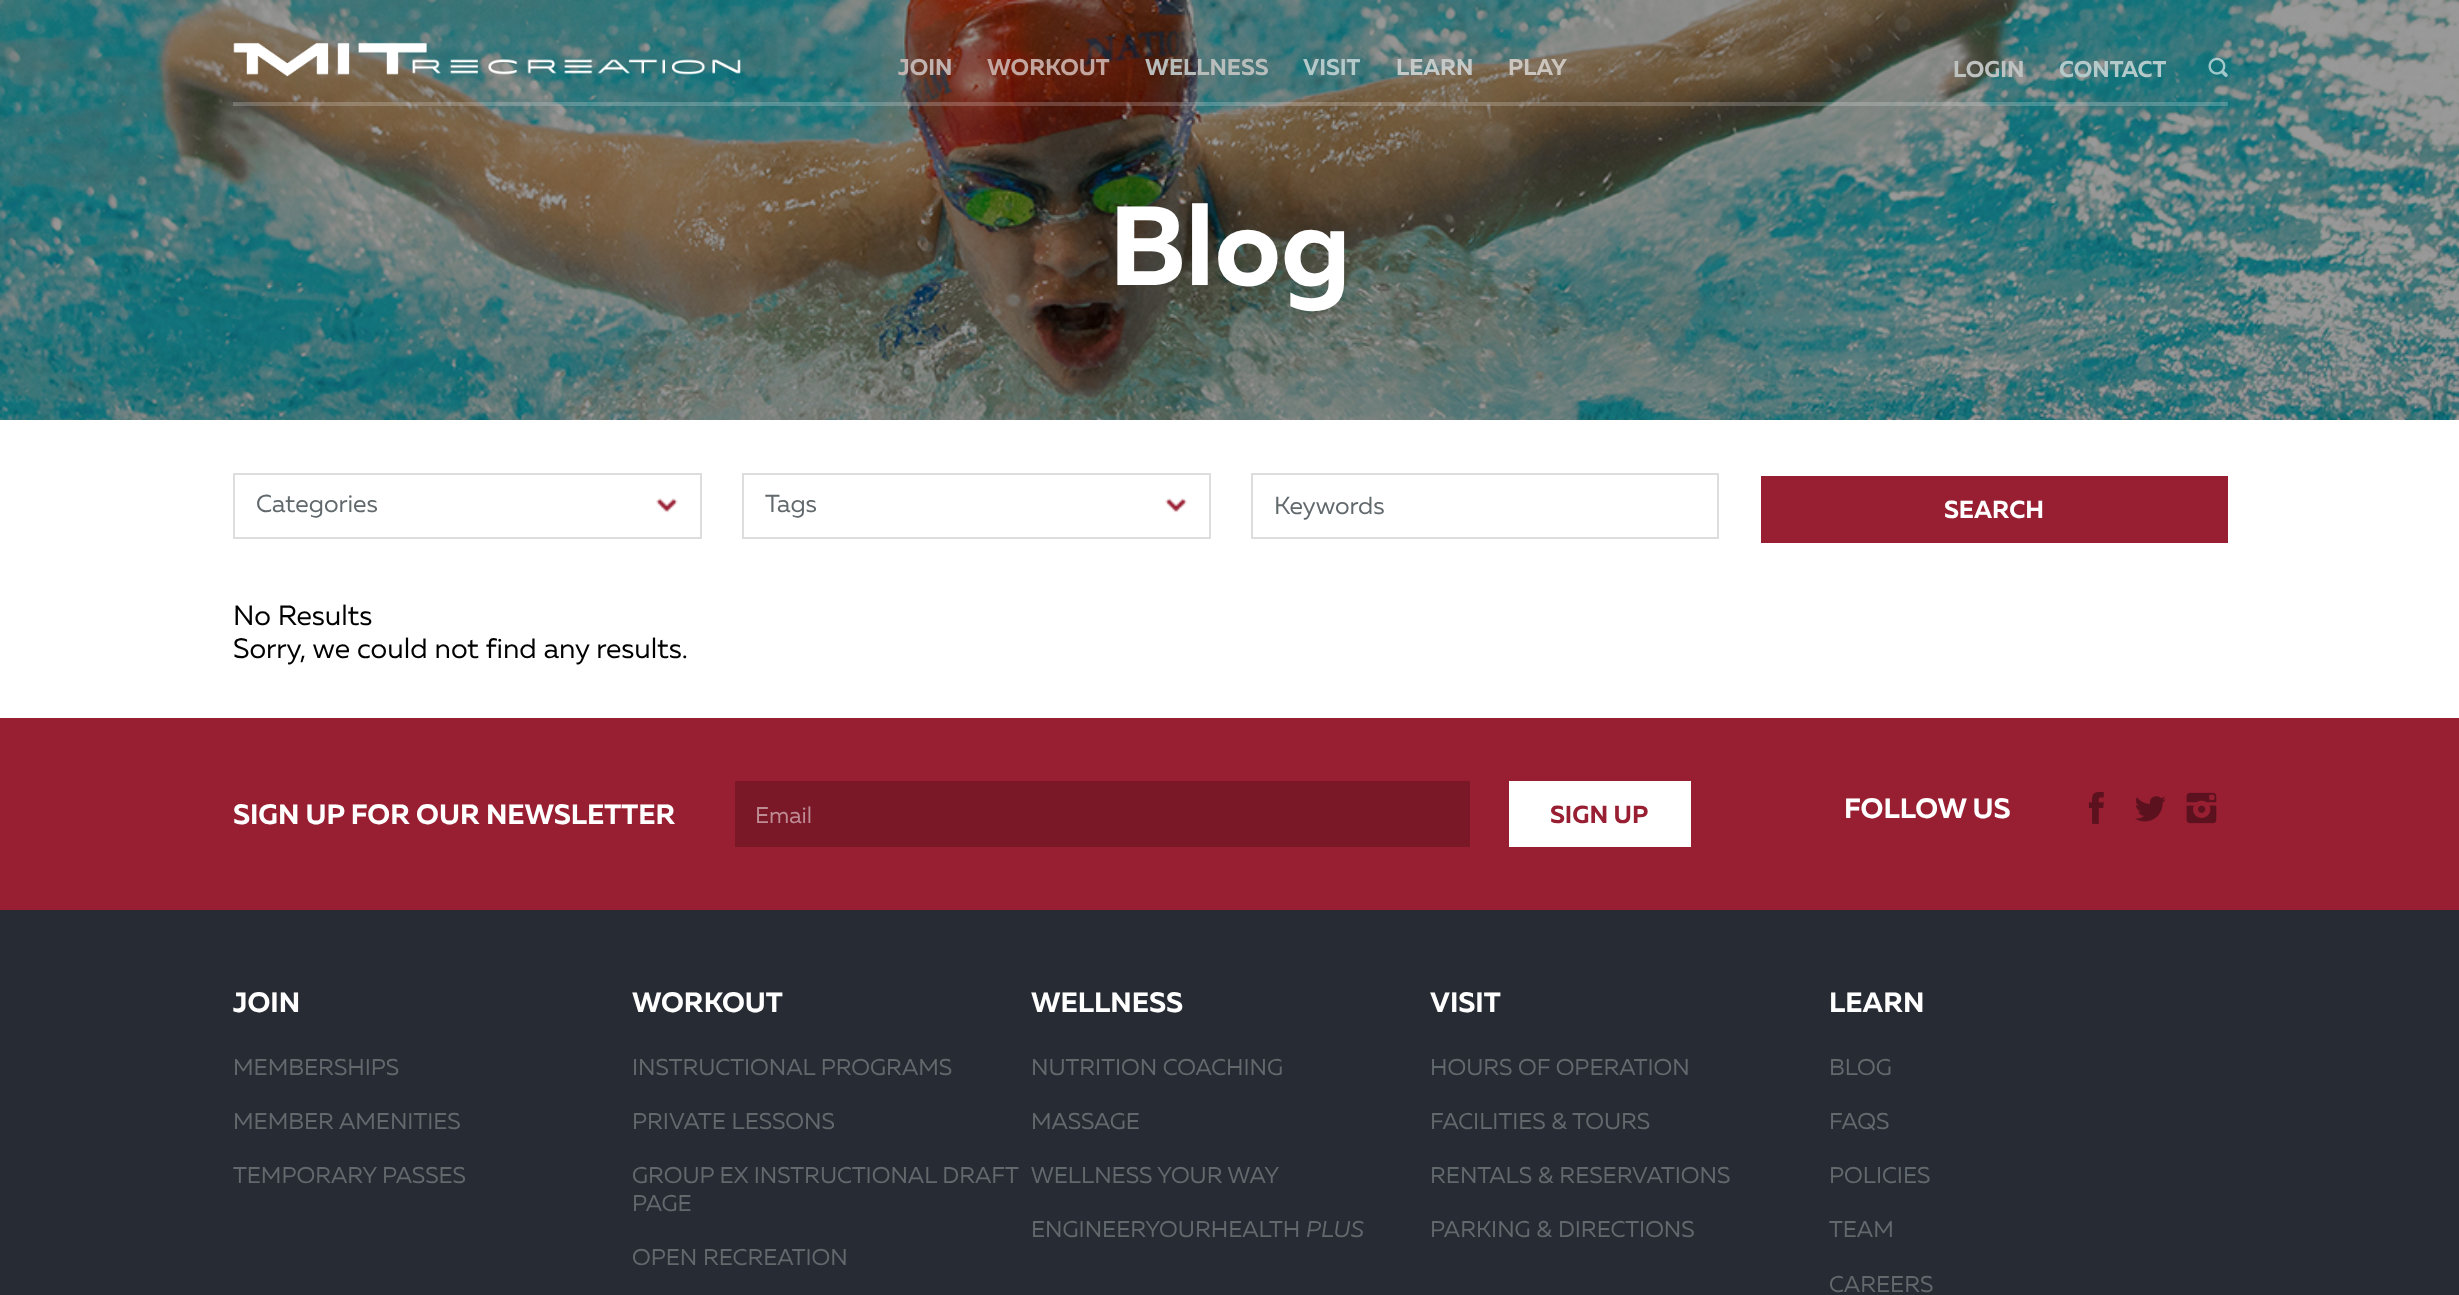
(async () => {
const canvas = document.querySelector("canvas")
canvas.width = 2459
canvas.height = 1295
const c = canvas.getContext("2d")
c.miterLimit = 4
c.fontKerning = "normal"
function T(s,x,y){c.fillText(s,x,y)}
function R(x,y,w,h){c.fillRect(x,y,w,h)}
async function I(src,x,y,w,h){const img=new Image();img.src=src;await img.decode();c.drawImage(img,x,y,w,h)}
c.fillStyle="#fff"
R(0,0,2459,1295)
await I("3.png",0,0,2459,420)
c.fillStyle="#ffffff33"
R(233,102,1995,4)
await I("1.png",233,42,508,35)
c.font="bold 22.75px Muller"
c.fillStyle="#c1b3af"
T("JOIN",898,75)
c.fillStyle="#c2a69f"
T("WORKOUT",987,75)
c.fillStyle="#b8bdbb"
T("WELLNESS",1145,75)
c.fillStyle="#b3c9ca"
T("VISIT",1303,75)
c.fillStyle="#c5cac8"
T("LEARN",1396,75)
c.fillStyle="#cbc5be"
T("PLAY",1508,75)
c.fillStyle="#bec3c1"
T("LOGIN",1953,77)
c.fillStyle="#b3c9ca"
T("CONTACT",2059,77)
await I("2.png",2208,57,20,20)
c.font="bold 112px Muller"
c.fillStyle="#fff"
T("Blog",1109,285)
await I("4.png",656,498,22,15)
c.strokeStyle="#ddd"
c.lineWidth=2
c.strokeRect(234,474,467,64)
c.font="24.5px Muller"
c.fillStyle="#62696d"
T("Categories",256,512)
await I("5.png",1165,498,22,15)
c.strokeRect(743,474,467,64)
T("Tags",765,512)
c.strokeRect(1252,474,466,64)
T("Keywords",1274,514)
c.fillStyle="#981e32"
R(1761,476,467,67)
c.font="bold 24.5px Muller"
c.fillStyle="#fff"
T("SEARCH",1944,518)
c.font="28px Muller"
c.fillStyle="#000"
T("No Results",233,625)
T("Sorry, we could not find any results.",233,658)
c.fillStyle="#981e32"
R(0,718,2459,192)
c.font="bold 28px Muller"
c.fillStyle="#fff"
T("SIGN UP FOR OUR NEWSLETTER",233,824)
c.fillStyle="#7a1828"
R(735,781,735,66)
c.font="22.75px Muller"
c.fillStyle="#bd8c94"
T("Email",755,823)
c.fillStyle="#fff"
R(1509,781,182,66)
c.font="bold 24.5px Muller"
c.fillStyle="#981e32"
T("SIGN UP",1550,823)
c.font="bold 28px Muller"
c.fillStyle="#fff"
T("FOLLOW US",1844,818)
await I("6.png",2088,792,16,32)
await I("7.png",2135,796,31,26)
await I("8.png",2186,792,31,32)
c.fillStyle="#272b33"
R(0,910,2459,385)
c.fillStyle="#fff"
T("JOIN",233,1012)
c.font="22.75px Muller"
c.fillStyle="#62696d"
T("MEMBERSHIPS",233,1075)
T("MEMBER AMENITIES",233,1129)
T("TEMPORARY PASSES",233,1183)
c.font="bold 28px Muller"
c.fillStyle="#fff"
T("WORKOUT",632,1012)
c.font="22.75px Muller"
c.fillStyle="#62696d"
T("INSTRUCTIONAL PROGRAMS",632,1075)
T("PRIVATE LESSONS",632,1129)
T("GROUP EX INSTRUCTIONAL DRAFT",632,1183)
T("PAGE",632,1211)
T("OPEN RECREATION",632,1265)
c.font="bold 28px Muller"
c.fillStyle="#fff"
T("WELLNESS",1031,1012)
c.font="22.75px Muller"
c.fillStyle="#62696d"
T("NUTRITION COACHING",1031,1075)
T("MASSAGE",1031,1129)
T("WELLNESS YOUR WAY",1031,1183)
T("ENGINEERYOURHEALTH",1031,1237)
c.font="italic 22.75px Muller"
T("PLUS",1306,1237)
c.font="bold 28px Muller"
c.fillStyle="#fff"
T("VISIT",1430,1012)
c.font="22.75px Muller"
c.fillStyle="#62696d"
T("HOURS OF OPERATION",1430,1075)
T("FACILITIES & TOURS",1430,1129)
T("RENTALS & RESERVATIONS",1430,1183)
T("PARKING & DIRECTIONS",1430,1237)
c.font="bold 28px Muller"
c.fillStyle="#fff"
T("LEARN",1829,1012)
c.font="22.75px Muller"
c.fillStyle="#62696d"
T("BLOG",1829,1075)
T("FAQS",1829,1129)
T("POLICIES",1829,1183)
T("TEAM",1829,1237)
T("CAREERS",1829,1292)
})()
